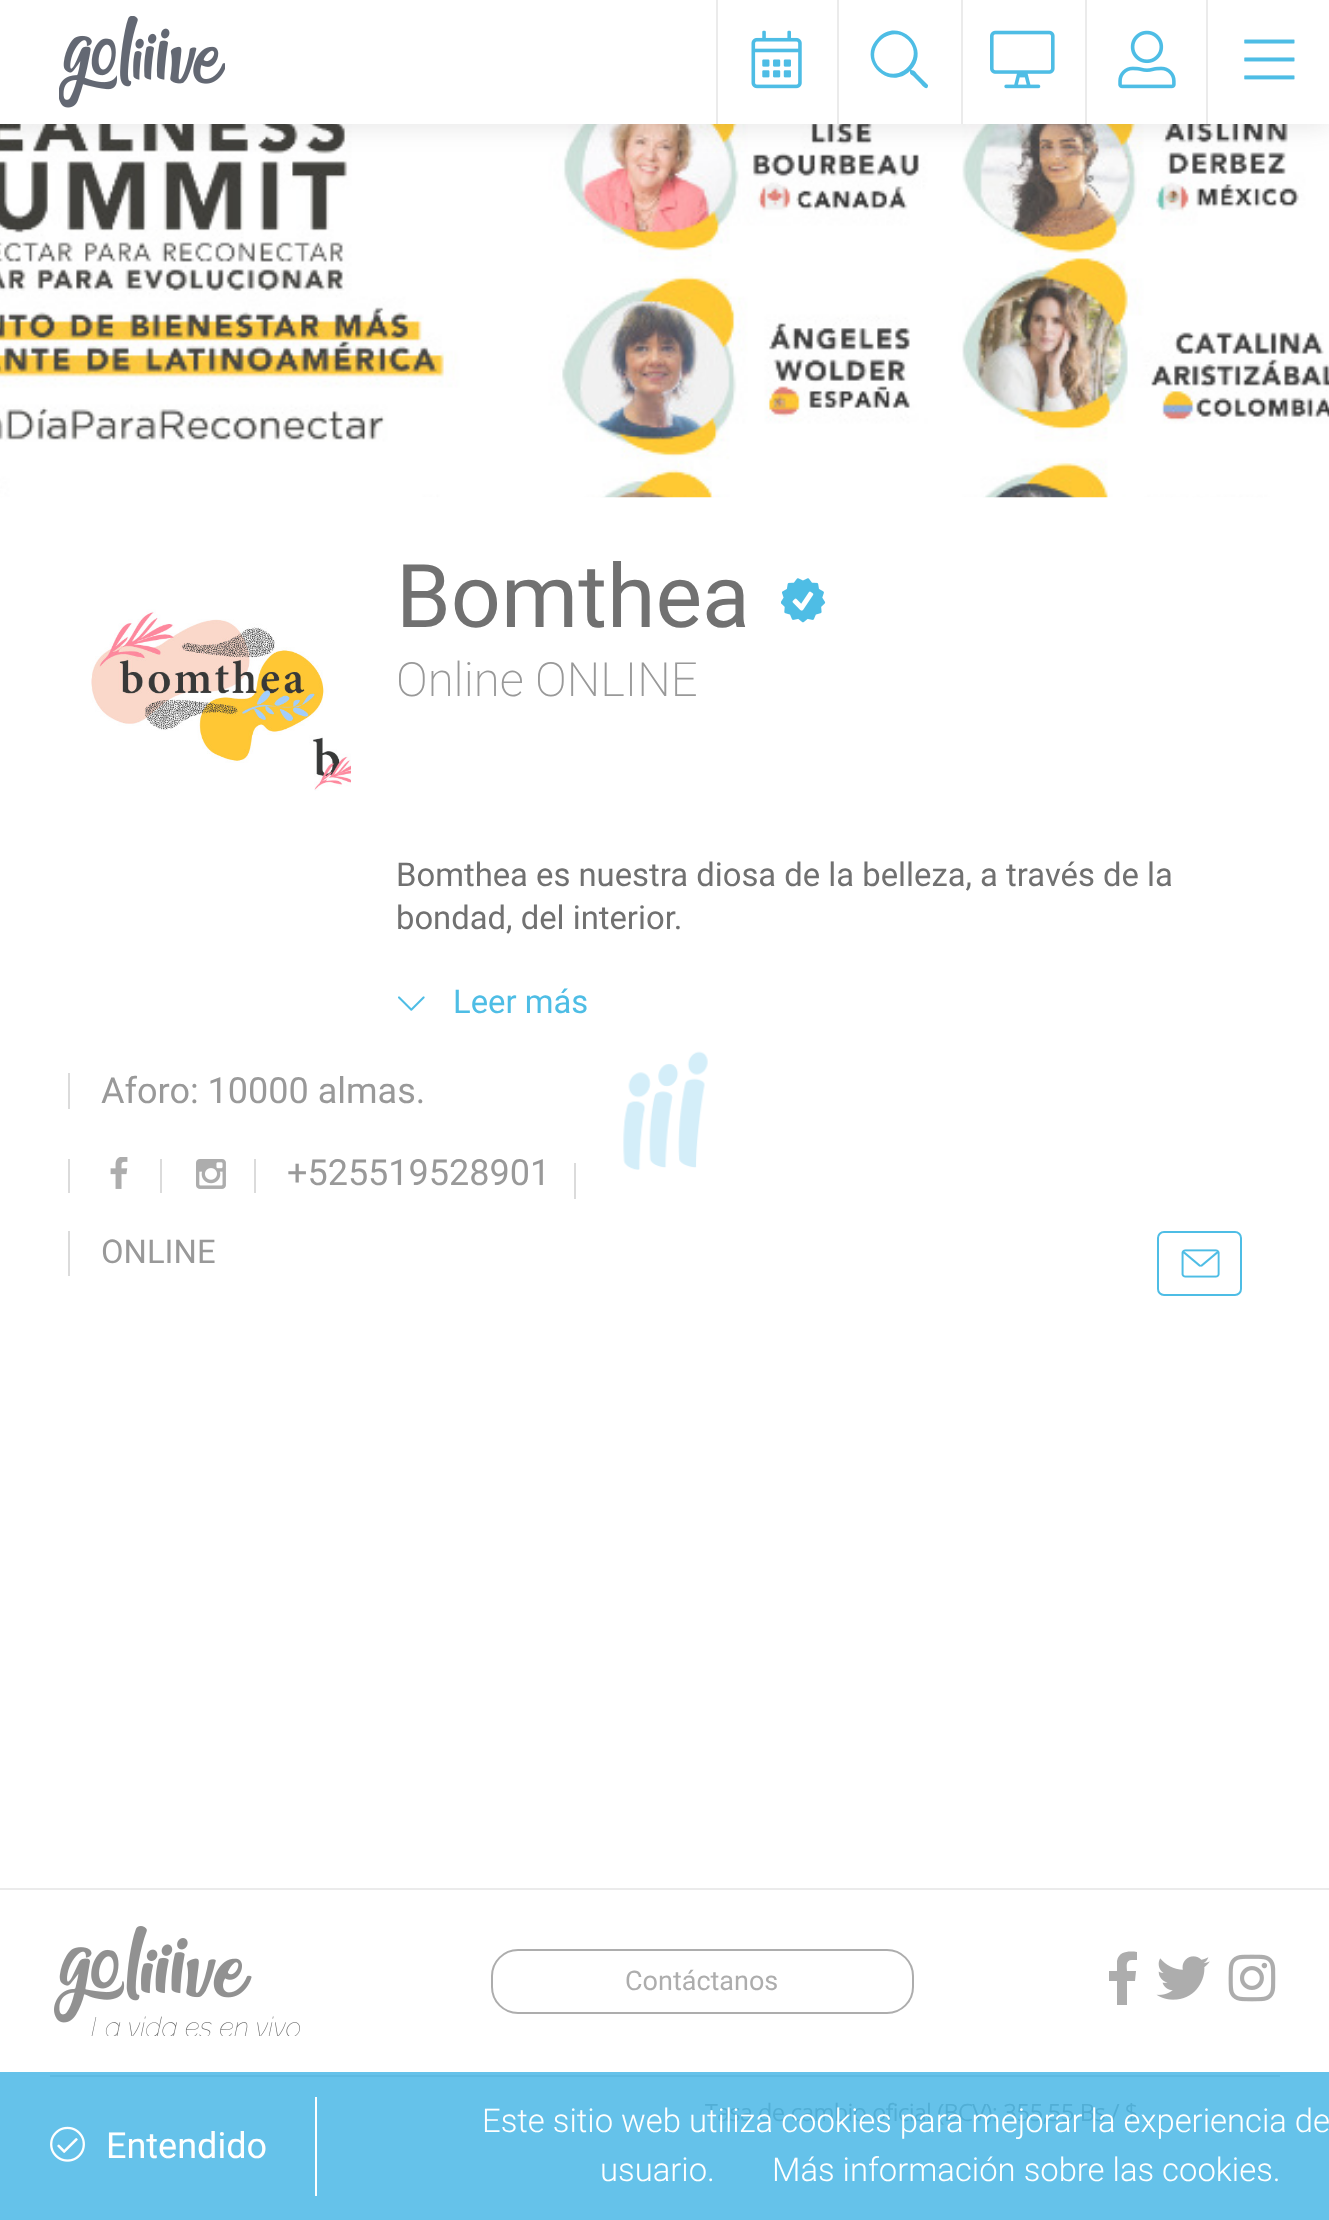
(async () => {
const canvas = document.querySelector("canvas")
canvas.width = 1329
canvas.height = 2220
const c = canvas.getContext("2d")
c.miterLimit = 4
c.fontKerning = "normal"
function T(s,x,y){c.fillText(s,x,y)}
function R(x,y,w,h){c.fillRect(x,y,w,h)}
async function I(src,x,y,w,h){const img=new Image();img.src=src;await img.decode();c.drawImage(img,x,y,w,h)}
let path
c.fillStyle="#fff"
R(0,0,1329,2220)
c.fillStyle="#65c2ea"
R(0,2072,1329,148)
await I("6.png",0,124,1329,374)
c.fillStyle="#33333326"
c.filter="blur(14px)"
c.beginPath()
c.rect(0,0,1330,124)
c.fill()
c.filter="none"
c.fillStyle="#fff"
R(0,0,1329,124)
await I("1.png",59,16,166,92)
c.fillStyle="#ebebeb"
R(716,0,2,124)
await I("2.png",751,30,51,59)
R(837,0,2,124)
c.fillStyle="#4ebde5"
path = new Path2D("M928 85v1c-1 6-7-2-8-3l-7-7c-3-2-3-2-3-5c-22 21-54-12-32-33c21-22 54 10 33 32c4 0 5 3 7 5zm-48-17c18 18 46-10 28-28c-18-18-46 10-28 28z")
c.fill(path)
c.fillStyle="#ebebeb"
R(961,0,2,124)
await I("3.png",990,30,65,59)
R(1085,0,2,124)
await I("4.png",1118,30,58,59)
R(1206,0,2,124)
await I("5.png",1244,39,51,41)
await I("7.png",72,545,279,278)
c.font="88px Roboto"
c.fillStyle="#717171"
T("Bomthea",396,627)
await I("8.png",781,578,45,45)
c.font="200 47.25px Roboto"
c.fillStyle="#999"
T("Online ONLINE",396,696)
c.font="32.8px Roboto"
c.fillStyle="#717171"
T("Bomthea es nuestra diosa de la belleza, a través de la",396,886)
T("bondad, del interior.",396,929)
await I("9.png",398,996,27,15)
c.fillStyle="#4ebde5"
T("Leer más",453,1013)
c.fillStyle="#dbdbdb"
R(68,1073,2,36)
c.font="36px Roboto"
c.fillStyle="#999"
T("Aforo: 10000 almas.",101,1103)
c.fillStyle="#dbdbdb"
R(68,1159,2,34)
await I("10.png",110,1157,18,32)
R(160,1159,2,34)
await I("11.png",196,1159,30,30)
R(254,1159,2,34)
c.fillStyle="#999"
T("+525519528901",287,1185)
c.fillStyle="#dbdbdb"
R(574,1163,2,36)
R(68,1231,2,45)
c.font="32.8px Roboto"
c.fillStyle="#999"
T("ONLINE",101,1263)
await I("12.png",1181,1249,39,29)
c.beginPath()
c.roundRect(1158,1232,83,63,6)
c.strokeStyle="#4ebde5"
c.lineWidth=2
c.stroke()
await I("13.png",623,1051,85,119)
c.fillStyle="#ebebeb"
R(0,1888,1329,2)
c.fillStyle="#5dbae2"
R(50,2075,1230,2)
await I("14.png",54,1926,246,110)
c.beginPath()
c.roundRect(492,1950,421,63,26)
c.strokeStyle="#adadad"
c.stroke()
c.font="27px Roboto"
c.fillStyle="#adadad"
T("Contáctanos",625,1990)
path = new Path2D("M1132 1960c-7 0-5 7-5 11h9l-1 10h-8v24h-10v-24h-8v-10h8v-10c2-10 12-10 20-9v8z")
c.fill(path)
await I("15.png",1156,1956,54,44)
await I("16.png",1228,1954,48,48)
c.font="bold 23px Open Sans"
c.fillStyle="#51aed5"
T("Tasa de cambio oficial (BCV): 355,55 Bs / $",705,2121)
await I("17.png",50,2126,35,36)
c.font="36px Roboto"
c.fillStyle="#fff"
T("Entendido",106,2158)
R(315,2097,2,99)
c.font="300 32.8px Roboto"
T("Este sitio web utiliza cookies para mejorar la experiencia de",482,2132)
T("usuario.",600,2181)
T("Más información sobre las cookies.",772,2181)
})()
